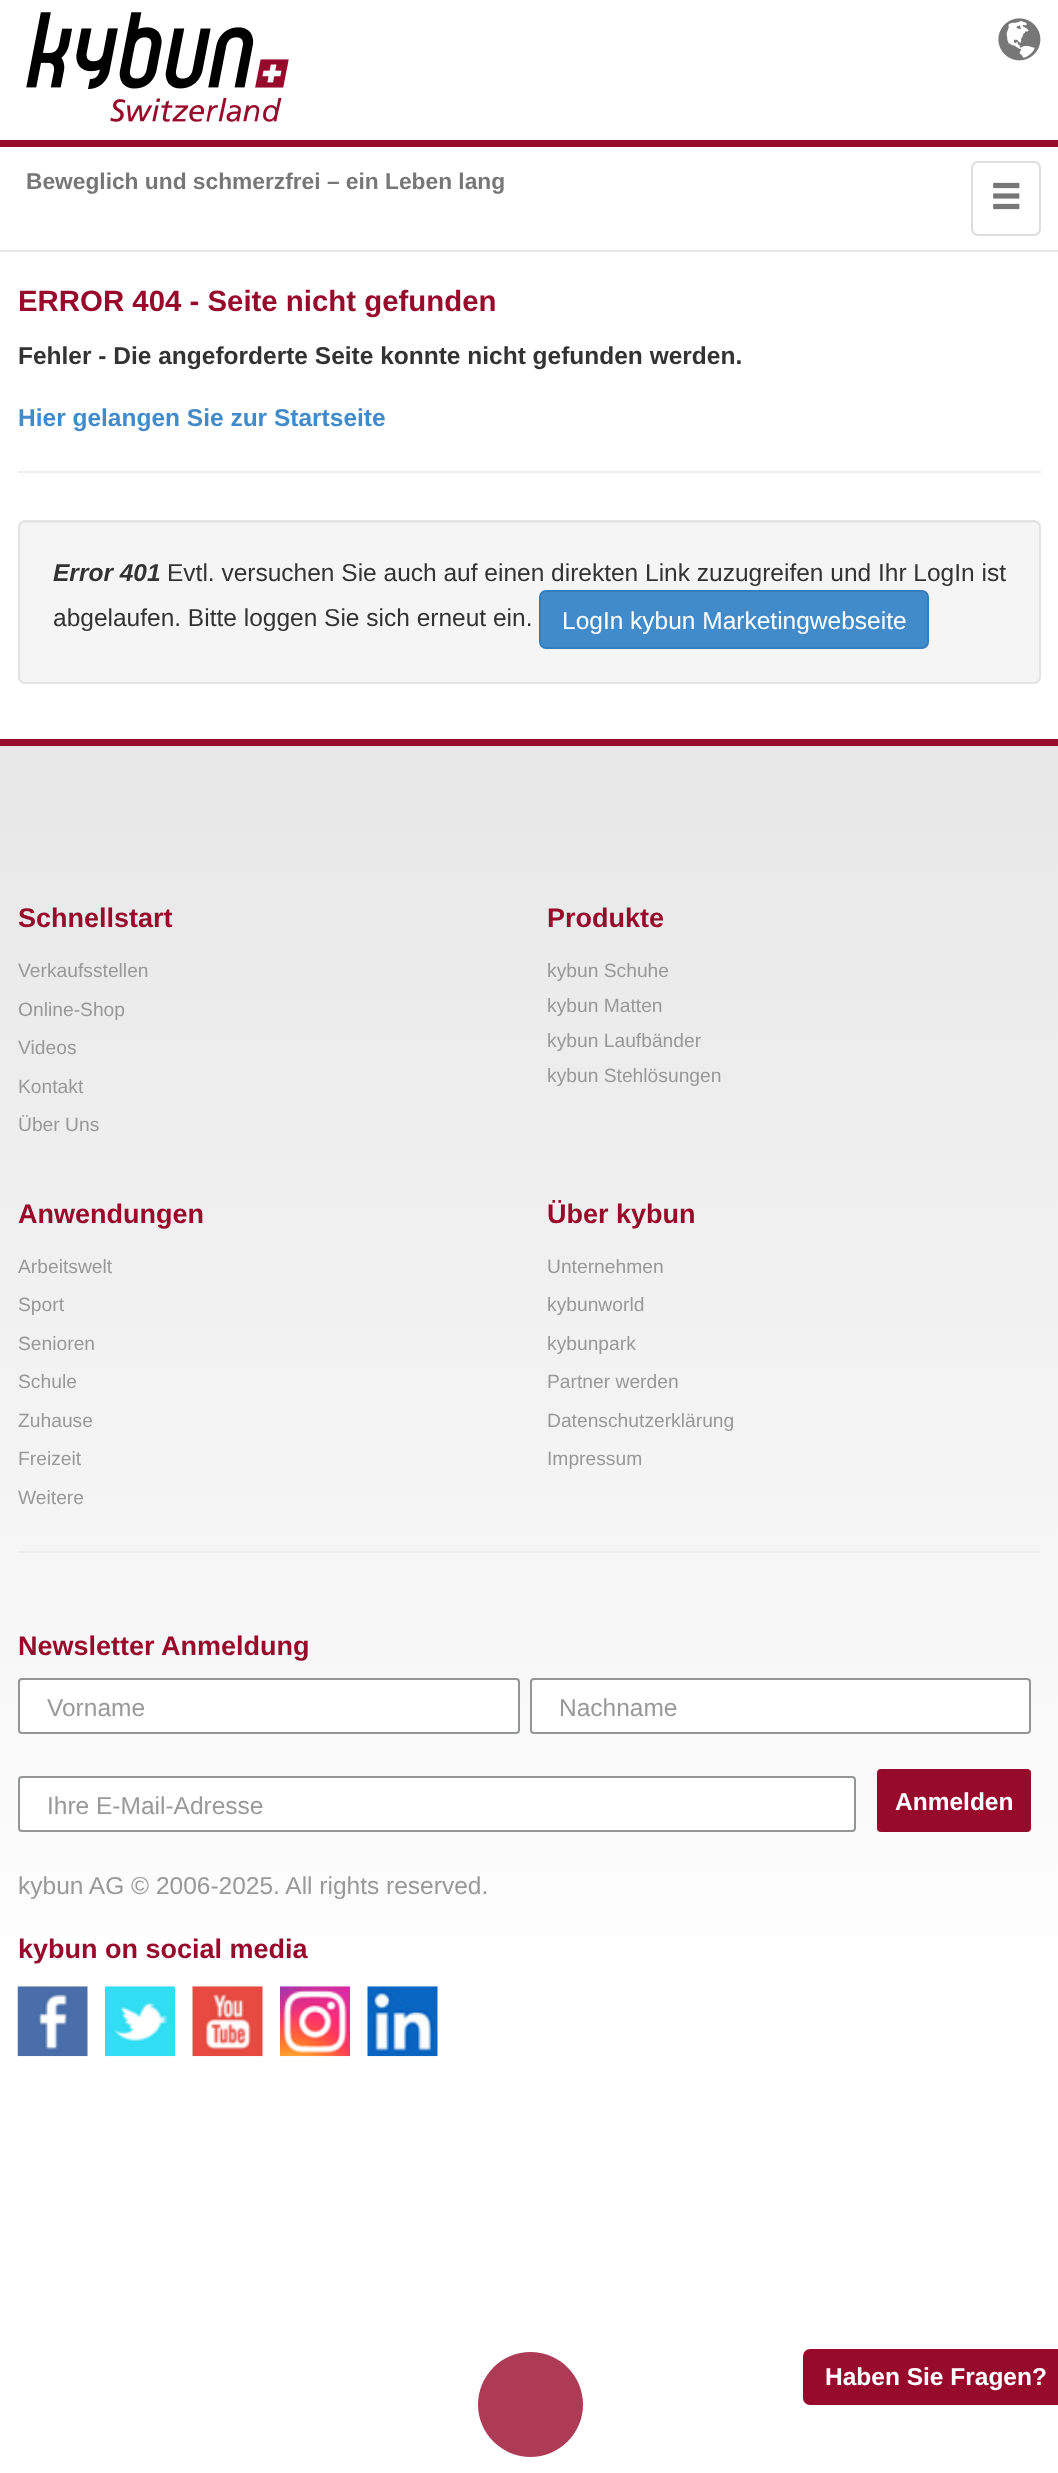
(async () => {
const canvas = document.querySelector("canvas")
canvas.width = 1058
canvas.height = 2473
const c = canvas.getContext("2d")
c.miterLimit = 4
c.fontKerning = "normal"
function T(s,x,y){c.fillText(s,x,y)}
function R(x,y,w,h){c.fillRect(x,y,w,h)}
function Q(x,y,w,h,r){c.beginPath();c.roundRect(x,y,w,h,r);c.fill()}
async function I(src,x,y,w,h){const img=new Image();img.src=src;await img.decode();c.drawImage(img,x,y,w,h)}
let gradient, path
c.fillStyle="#fff"
R(0,0,1058,2473)
await I("1.png",26,12,263,110)
await I("2.png",998,18,43,43)
c.fillStyle="#980a2b"
R(0,140,1058,7)
c.fillStyle="#e7e7e7"
R(0,250,1058,2)
c.font="bold 22.75px Liberation Sans"
c.fillStyle="#777"
T("Beweglich und schmerzfrei – ein Leben lang",26,189)
c.beginPath()
c.roundRect(972,162,68,73,6)
c.strokeStyle="#ddd"
c.lineWidth=2
c.stroke()
await I("3.png",993,182,27,28)
c.font="bold 29.4px Liberation Sans"
c.fillStyle="#980a2b"
T("ERROR 404 - Seite nicht gefunden",18,311)
c.font="bold 24.5px Liberation Sans"
c.fillStyle="#333"
T("Fehler - Die angeforderte Seite konnte nicht gefunden werden.",18,364)
c.fillStyle="#428bca"
T("Hier gelangen Sie zur Startseite",18,426)
c.fillStyle="#eee"
R(18,471,1023,2)
c.fillStyle="#f5f5f5"
Q(18,520,1023,164,7)
c.fillStyle="#e9e9e9"
path = new Path2D("M24 523h1010c3 0 6 3 6 5c0-3-2-6-5-6h-1011c-3 0-5 3-5 6c0-2 3-5 5-5z")
c.fill(path)
c.beginPath()
c.roundRect(19,521,1021,162,6)
c.strokeStyle="#e3e3e3"
c.stroke()
c.font="italic bold 24.5px Liberation Sans"
c.fillStyle="#333"
T("Error 401",53,581)
c.font="24.5px Liberation Sans"
T("Evtl. versuchen Sie auch auf einen direkten Link zuzugreifen und Ihr LogIn ist",167,581)
T("abgelaufen. Bitte loggen Sie sich erneut ein.",53,626)
c.fillStyle="#428bca"
c.beginPath()
c.roundRect(540,591,388,57,6)
c.fill()
c.strokeStyle="#357ebd"
c.stroke()
c.fillStyle="#fff"
T("LogIn kybun Marketingwebseite",562,629)
gradient = c.createLinearGradient(529,745,529,2074)
gradient.addColorStop(0,"#e7e7e7")
gradient.addColorStop(1,"#fff")
c.fillStyle = gradient
R(0,746,1058,1190)
c.fillStyle="#980a2b"
R(0,739,1058,7)
c.font="bold 27px Liberation Sans"
T("Schnellstart",18,927)
c.font="19.25px Liberation Sans"
c.fillStyle="#999"
T("Verkaufsstellen",18,977)
T("Online-Shop",18,1016)
T("Videos",18,1054)
T("Kontakt",18,1093)
T("Über Uns",18,1131)
c.font="bold 27px Liberation Sans"
c.fillStyle="#980a2b"
T("Produkte",547,927)
c.font="19.25px Liberation Sans"
c.fillStyle="#999"
T("kybun Schuhe",547,977)
T("kybun Matten",547,1012)
T("kybun Laufbänder",547,1047)
T("kybun Stehlösungen",547,1082)
c.font="bold 27px Liberation Sans"
c.fillStyle="#980a2b"
T("Anwendungen",18,1223)
c.font="19.25px Liberation Sans"
c.fillStyle="#999"
T("Arbeitswelt",18,1273)
T("Sport",18,1311)
T("Senioren",18,1350)
T("Schule",18,1388)
T("Zuhause",18,1427)
T("Freizeit",18,1465)
T("Weitere",18,1504)
c.font="bold 27px Liberation Sans"
c.fillStyle="#980a2b"
T("Über kybun",547,1223)
c.font="19.25px Liberation Sans"
c.fillStyle="#999"
T("Unternehmen",547,1273)
T("kybunworld",547,1311)
T("kybunpark",547,1350)
T("Partner werden",547,1388)
T("Datenschutzerklärung",547,1427)
T("Impressum",547,1465)
c.fillStyle="#eee"
R(18,1551,1023,2)
c.font="bold 27px Liberation Sans"
c.fillStyle="#980a2b"
T("Newsletter Anmeldung",18,1655)
c.fillStyle="#fff"
c.beginPath()
c.roundRect(19,1679,500,54,3)
c.fill()
c.strokeStyle="#949596"
c.stroke()
c.font="24.5px Liberation Sans"
c.fillStyle="#999"
T("Vorname",47,1716)
c.fillStyle="#fff"
c.beginPath()
c.roundRect(531,1679,499,54,3)
c.fill()
c.stroke()
c.fillStyle="#999"
T("Nachname",559,1716)
c.fillStyle="#fff"
c.beginPath()
c.roundRect(19,1777,836,54,3)
c.fill()
c.stroke()
c.fillStyle="#999"
T("Ihre E-Mail-Adresse",47,1814)
c.fillStyle="#980a2b"
Q(877,1769,154,63,4)
c.font="bold 24.5px Liberation Sans"
c.fillStyle="#fff"
T("Anmelden",895,1810)
c.font="24.5px Liberation Sans"
c.fillStyle="#999"
T("kybun AG © 2006-2025. All rights reserved.",18,1894)
c.font="bold 27px Liberation Sans"
c.fillStyle="#980a2b"
T("kybun on social media",18,1958)
await I("4.png",17,1986,71,71)
await I("5.png",105,1986,70,71)
await I("6.png",192,1986,71,71)
await I("7.png",280,1986,70,71)
await I("8.png",367,1986,71,71)
Q(803,2349,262,56,7)
c.font="bold 24.5px Liberation Sans"
c.fillStyle="#fff"
T("Haben Sie Fragen?",825,2385)
c.fillStyle="#980a2bcc"
c.beginPath()
c.arc(530.5,2404.5,52.5,0,7)
c.fill()
})()
